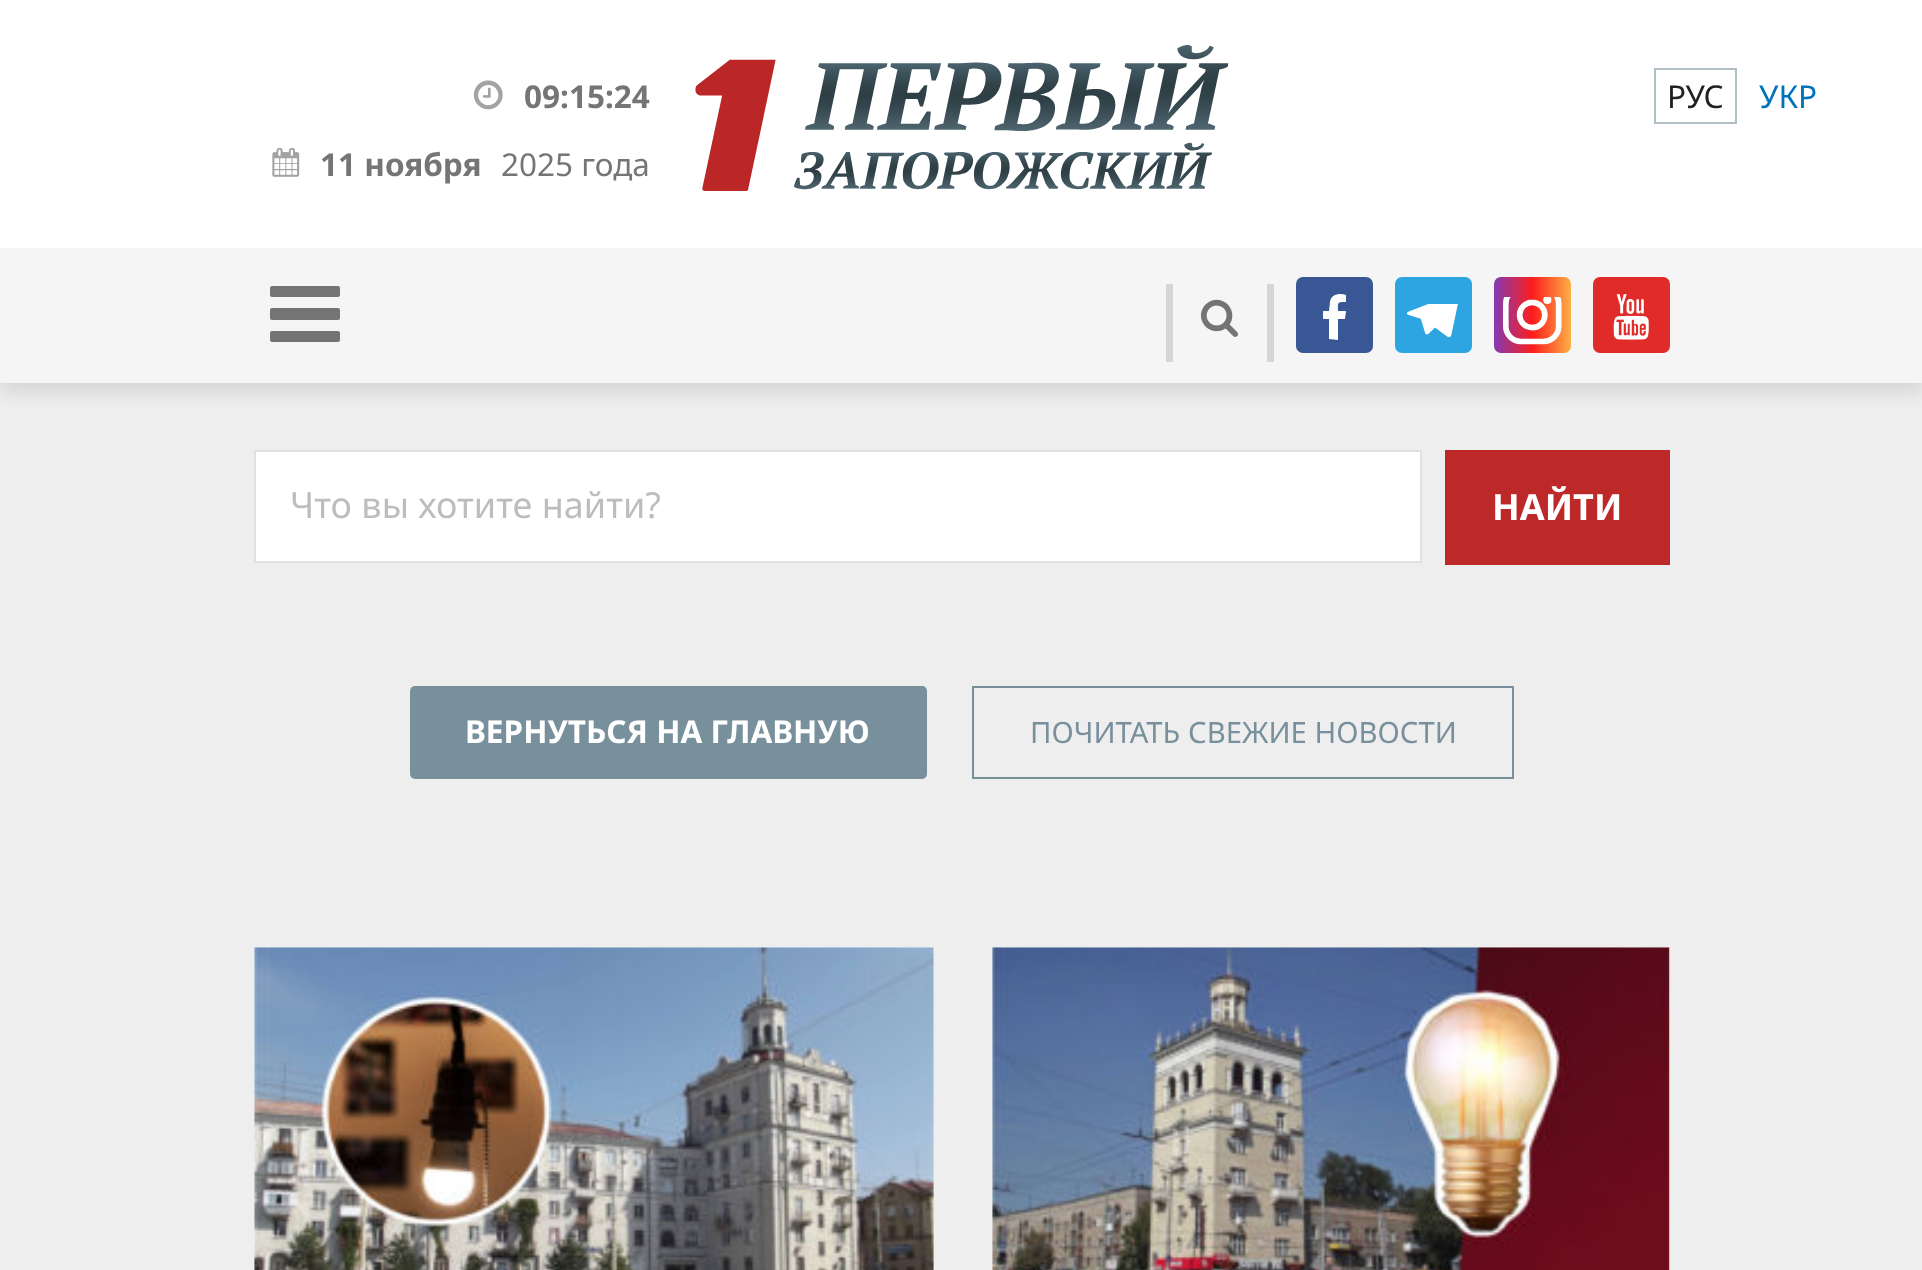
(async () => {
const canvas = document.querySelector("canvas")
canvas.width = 1922
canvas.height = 1270
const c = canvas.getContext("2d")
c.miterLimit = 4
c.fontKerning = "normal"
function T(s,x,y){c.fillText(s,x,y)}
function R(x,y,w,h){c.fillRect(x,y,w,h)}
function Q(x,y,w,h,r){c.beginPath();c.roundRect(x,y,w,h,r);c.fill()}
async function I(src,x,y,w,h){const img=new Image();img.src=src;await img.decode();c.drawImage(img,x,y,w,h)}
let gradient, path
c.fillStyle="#eee"
R(0,0,1922,1270)
c.fillStyle="#0000001a"
c.filter="blur(9px)"
c.beginPath()
c.rect(0,9,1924,383)
c.fill()
c.filter="none"
c.fillStyle="#fff"
R(0,0,1922,248)
await I("1.png",473,80,30,30)
c.font="bold 31.5px Noto Sans"
c.fillStyle="#757575"
T("09:15:24",524,108)
await I("2.png",272,147,28,30)
T("11 ноября",320,176)
c.font="31.5px Noto Sans"
T("2025 года",501,176)
await I("3.png",695,45,534,146)
c.strokeStyle="#b0bec5"
c.lineWidth=2
c.strokeRect(1655,69,81,54)
c.fillStyle="#212121"
T("РУС",1667,108)
c.fillStyle="#0072bc"
T("УКР",1759,108)
c.fillStyle="#f5f5f5"
R(0,248,1922,135)
c.fillStyle="#747474"
Q(270,286,70,11,2)
Q(270,308,70,12,2)
Q(270,331,70,11,2)
c.fillStyle="#d6d6d6"
R(1166,284,7,78)
await I("4.png",1200,299,38,38)
R(1267,284,7,78)
c.fillStyle="#3a5795"
Q(1296,277,77,76,7)
c.fillStyle="#fff"
path = new Path2D("M1338 340v-21h7l1-8h-8c0-9-1-9 8-9v-7c-6-2-15-1-16 7l-1 9h-6v8h6v20z")
c.fill(path)
c.fillStyle="#2ca5e0"
Q(1395,277,77,76,7)
await I("5.png",1407,304,51,33)
gradient = c.createLinearGradient(1494,315,1571,315)
gradient.addColorStop(0,"#833ab4")
gradient.addColorStop(.5,"#fd1d1d")
gradient.addColorStop(1,"#fcb045")
c.fillStyle = gradient
Q(1494,277,77,76,7)
await I("6.png",1502,297,60,48)
c.fillStyle="#e12b28"
Q(1593,277,77,76,7)
await I("7.png",1613,294,36,46)
c.fillStyle="#fff"
c.beginPath()
c.rect(255,451,1166,111)
c.fill()
c.strokeStyle="#e0e0e0"
c.stroke()
c.font="36px Noto Sans"
c.fillStyle="#bdbdbd"
T("Что вы хотите найти?",290,518)
c.fillStyle="#bd2828"
R(1445,450,225,115)
c.font="bold 36px Noto Sans"
c.fillStyle="#fff"
T("НАЙТИ",1492,520)
c.fillStyle="#78909c"
Q(410,686,517,93,5)
c.font="bold 31.5px Noto Sans"
c.fillStyle="#fff"
T("ВЕРНУТЬСЯ НА ГЛАВНУЮ",465,743)
c.strokeStyle="#78909c"
c.strokeRect(973,687,540,91)
c.font="29.25px Noto Sans"
c.fillStyle="#78909c"
T("ПОЧИТАТЬ СВЕЖИЕ НОВОСТИ",1030,743)
c.fillStyle="#f6f6f6"
R(254,947,680,323)
await I("8.png",254,947,680,323)
R(992,947,678,323)
await I("9.png",992,947,678,323)
})()
